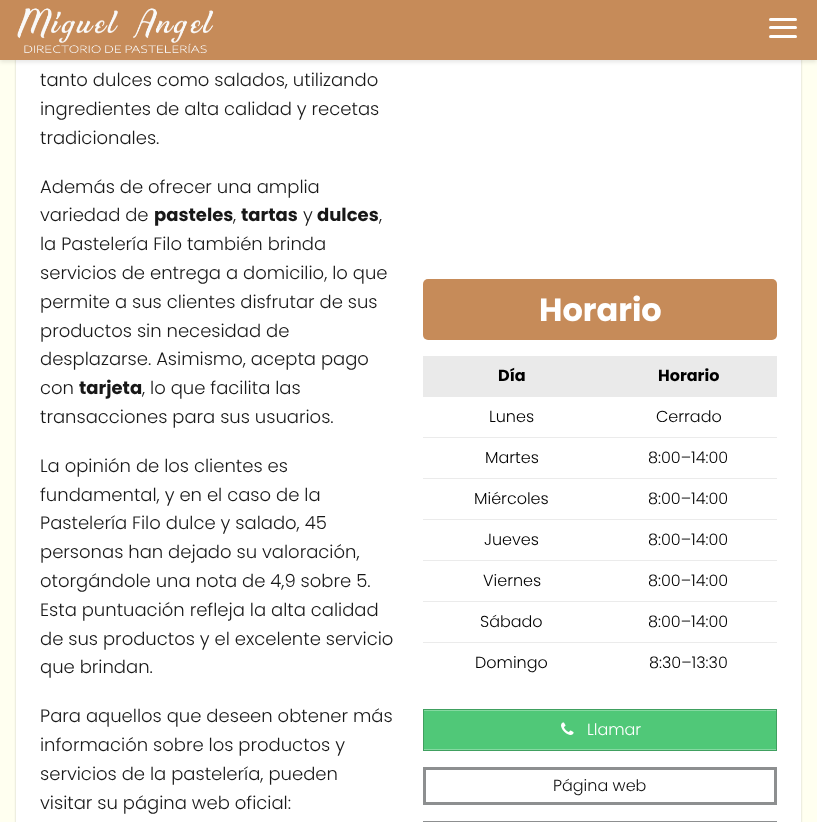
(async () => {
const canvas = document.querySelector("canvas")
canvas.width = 817
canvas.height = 822
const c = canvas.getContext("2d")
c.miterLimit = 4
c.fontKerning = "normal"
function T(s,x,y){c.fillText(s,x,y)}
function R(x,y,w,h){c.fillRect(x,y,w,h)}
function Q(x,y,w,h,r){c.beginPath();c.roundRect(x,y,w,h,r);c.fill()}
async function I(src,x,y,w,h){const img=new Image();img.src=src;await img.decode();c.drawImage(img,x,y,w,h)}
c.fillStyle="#fffff0"
R(0,0,817,822)
c.fillStyle="#00000033"
c.filter="blur(1px)"
c.beginPath()
c.roundRect(16,-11,785,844,8)
c.fill()
c.filter="none"
c.fillStyle="#fff"
R(16,60,785,762)
c.fillStyle="#0000001a"
c.filter="blur(2px)"
c.beginPath()
c.rect(0,2,817,60)
c.fill()
c.filter="none"
c.fillStyle="#c68b59"
R(0,0,817,60)
await I("1.png",17,8,197,46)
c.fillStyle="#fff"
Q(769,18,28,3,1.5)
Q(769,26,28,3,1.5)
Q(769,35,28,3,1.5)
c.font="300 18px Poppins"
c.fillStyle="#181818"
T("tanto dulces como salados, utilizando",40,86)
T("ingredientes de alta calidad y recetas",40,115)
T("tradicionales.",40,144)
T("Además de ofrecer una amplia",40,193)
T("variedad de",40,221)
c.font="bold 18px Poppins"
T("pasteles",154,221)
c.font="300 18px Poppins"
T(",",233,221)
c.font="bold 18px Poppins"
T("tartas",241,221)
c.font="300 18px Poppins"
T("y",303,221)
c.font="bold 18px Poppins"
T("dulces",317,221)
c.font="300 18px Poppins"
T(",",379,221)
T("la Pastelería Filo también brinda",40,250)
T("servicios de entrega a domicilio, lo que",40,279)
T("permite a sus clientes disfrutar de sus",40,308)
T("productos sin necesidad de",40,337)
T("desplazarse. Asimismo, acepta pago",40,365)
T("con",40,394)
c.font="bold 18px Poppins"
T("tarjeta",79,394)
c.font="300 18px Poppins"
T(", lo que facilita las",142,394)
T("transacciones para sus usuarios.",40,423)
T("La opinión de los clientes es",40,472)
T("fundamental, y en el caso de la",40,501)
T("Pastelería Filo dulce y salado, 45",40,529)
T("personas han dejado su valoración,",40,558)
T("otorgándole una nota de 4,9 sobre 5.",40,587)
T("Esta puntuación refleja la alta calidad",40,616)
T("de sus productos y el excelente servicio",40,645)
T("que brindan.",40,673)
T("Para aquellos que deseen obtener más",40,722)
T("información sobre los productos y",40,751)
T("servicios de la pastelería, pueden",40,780)
T("visitar su página web oficial:",40,809)
c.fillStyle="#c68b59"
Q(423,279,354,61,5)
c.font="bold 32px Poppins"
c.fillStyle="#fff"
T("Horario",539,321)
c.fillStyle="#eaeaea"
R(423,356,354,41)
c.font="bold 16px Poppins"
c.fillStyle="#000"
T("Día",498,381)
T("Horario",658,381)
c.font="300 16px Poppins"
T("Lunes",489,422)
T("Cerrado",656,422)
T("Martes",485,463)
c.fillStyle="#ebebeb"
R(423,437,354,1)
c.fillStyle="#000"
T("8:00–14:00",648,463)
T("Miércoles",474,504)
c.fillStyle="#ebebeb"
R(423,478,354,1)
c.fillStyle="#000"
T("8:00–14:00",648,504)
T("Jueves",484,545)
c.fillStyle="#ebebeb"
R(423,519,354,1)
c.fillStyle="#000"
T("8:00–14:00",648,545)
T("Viernes",483,586)
c.fillStyle="#ebebeb"
R(423,560,354,1)
c.fillStyle="#000"
T("8:00–14:00",648,586)
T("Sábado",480,627)
c.fillStyle="#ebebeb"
R(423,601,354,1)
c.fillStyle="#000"
T("8:00–14:00",648,627)
T("Domingo",475,668)
c.fillStyle="#ebebeb"
R(423,642,354,1)
c.fillStyle="#000"
T("8:30–13:30",649,668)
c.fillStyle="#50c878"
R(424,711,352,38)
c.strokeStyle="#40a060"
c.strokeRect(423.5,709.5,353,41)
c.fillStyle="#85d9a1"
R(424,710,352,1)
R(424,749,352,1)
await I("2.png",561,722,13,13)
c.fillStyle="#fff"
T("Llamar",587,735)
c.strokeStyle="#8d8f90"
c.lineWidth=3
c.strokeRect(424.5,768.5,351,35)
c.fillStyle="#0e0e0e"
T("Página web",553,791)
c.strokeRect(424.5,822.5,351,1)
})()
